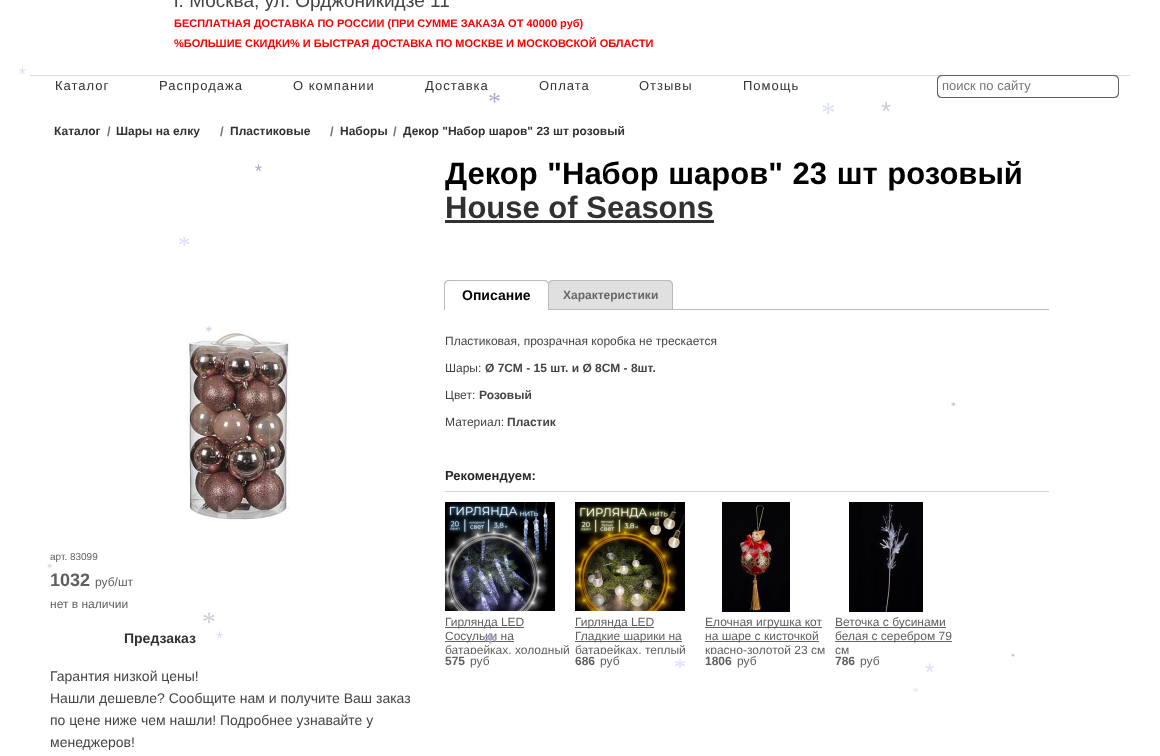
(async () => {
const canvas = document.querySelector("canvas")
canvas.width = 1160
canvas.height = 756
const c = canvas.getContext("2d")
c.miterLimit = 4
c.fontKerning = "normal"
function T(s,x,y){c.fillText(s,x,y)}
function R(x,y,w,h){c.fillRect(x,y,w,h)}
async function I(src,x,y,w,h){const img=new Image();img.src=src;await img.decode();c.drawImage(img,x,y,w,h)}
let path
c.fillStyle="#fff"
R(0,0,1160,756)
c.font="18px Liberation Sans"
c.fillStyle="#ddf"
T("*",19,80)
c.font="19px Liberation Sans"
c.fillStyle="#444"
T("г. Москва, ул. Орджоникидзе 11",174,7)
c.font="bold 11px Liberation Sans"
c.fillStyle="#f00"
T("БЕСПЛАТНАЯ ДОСТАВКА ПО РОССИИ (ПРИ СУММЕ ЗАКАЗА ОТ 40000 руб)",174,27)
T("%БОЛЬШИЕ СКИДКИ% И БЫСТРАЯ ДОСТАВКА ПО МОСКВЕ И МОСКОВСКОЙ ОБЛАСТИ",174,47)
c.fillStyle="#dcdcdc"
R(30,75,1100,1)
c.letterSpacing="1px"
c.font="13px Liberation Sans"
c.fillStyle="#313131"
T("Каталог",55,90)
T("Распродажа",159,90)
T("О компании",293,90)
T("Доставка",425,90)
T("Оплата",539,90)
T("Отзывы",639,90)
T("Помощь",743,90)
c.fillStyle="#fff"
c.beginPath()
c.roundRect(937,75,159,23,[5,0,0,5])
c.fill()
c.fillStyle="#606060"
path = new Path2D("M942 75h154v23h-154c-3 0-5-2-5-5v-13c0-3 2-5 5-5zm0 1h154v21h-154c-2 0-4-2-4-4v-13c0-2 2-4 4-4z")
c.fill(path,"evenodd")
c.letterSpacing="0px"
c.fillStyle="#757575"
T("поиск по сайту",942,90)
c.fillStyle="#fff"
c.beginPath()
c.roundRect(1096,75,23,23,[0,5,5,0])
c.fill()
c.fillStyle="#606060"
path = new Path2D("M1096 75h18c3 0 5 2 5 5v13c0 3-2 5-5 5h-18zm0 1h18c2 0 4 2 4 4v13c0 2-2 4-4 4h-18z")
c.fill(path,"evenodd")
c.font="bold 12px Liberation Sans"
c.fillStyle="#313131"
T("Каталог",54,135)
c.font="bold 13px Liberation Sans"
c.fillStyle="#757575"
T("/",107,136)
c.font="bold 12px Liberation Sans"
c.fillStyle="#313131"
T("Шары на елку",116,135)
c.font="bold 13px Liberation Sans"
c.fillStyle="#757575"
T("/",220,136)
c.font="bold 12px Liberation Sans"
c.fillStyle="#313131"
T("Пластиковые",230,135)
c.font="bold 13px Liberation Sans"
c.fillStyle="#757575"
T("/",330,136)
c.font="bold 12px Liberation Sans"
c.fillStyle="#313131"
T("Наборы",340,135)
c.font="bold 13px Liberation Sans"
c.fillStyle="#757575"
T("/",393,136)
c.font="bold 12px Liberation Sans"
c.fillStyle="#313131"
T("Декор \"Набор шаров\" 23 шт розовый",403,135)
await I("1.png",186,329,104,191)
c.font="10px Liberation Sans"
c.fillStyle="#5f5f5f"
T("арт. 83099",50,560)
c.font="bold 18px Liberation Sans"
T("1032",50,586)
c.font="12px Liberation Sans"
T("руб/шт",95,586)
T("нет в наличии",50,608)
c.font="bold 14px Liberation Sans"
c.fillStyle="#313131"
T("Предзаказ",124,643)
c.font="14px Liberation Sans"
c.fillStyle="#444"
T("Гарантия низкой цены!",50,681)
T("Нашли дешевле? Сообщите нам и получите Ваш заказ",50,703)
T("по цене ниже чем нашли! Подробнее узнавайте у",50,725)
T("менеджеров!",50,747)
c.wordSpacing="1px"
c.font="bold 31px Liberation Sans"
c.fillStyle="#000"
T("Декор \"Набор шаров\" 23 шт розовый",445,184)
c.wordSpacing="0px"
c.fillStyle="#313131"
T("House of Seasons",445,218)
R(445,220,269,3)
c.fillStyle="#bbb"
R(549,309,500,1)
c.fillStyle="#e0e0e0"
c.beginPath()
c.roundRect(548,280,125,29,[5,5,0,0])
c.fill()
c.fillStyle="#bbb"
path = new Path2D("M553 280h115c3 0 5 2 5 5v24h-125v-24c0-3 2-5 5-5zm0 1h115c2 0 4 2 4 4v24h-123v-24c0-2 2-4 4-4z")
c.fill(path,"evenodd")
c.fillStyle="#fff"
c.beginPath()
c.roundRect(444,280,105,30,[5,5,0,0])
c.fill()
c.fillStyle="#bbb"
path = new Path2D("M449 280h95c3 0 5 2 5 5v25h-105v-25c0-3 2-5 5-5zm0 1h95c2 0 4 2 4 4v25h-103v-25c0-2 2-4 4-4z")
c.fill(path,"evenodd")
c.font="bold 14px Liberation Sans"
c.fillStyle="#000"
T("Описание",462,300)
c.font="bold 12px Liberation Sans"
c.fillStyle="#676767"
T("Характеристики",563,299)
c.font="12px Liberation Sans"
c.fillStyle="#444"
T("Пластиковая, прозрачная коробка не трескается",445,345)
T("Шары:",445,372)
c.font="bold 12px Liberation Sans"
T("Ø 7СМ - 15 шт. и Ø 8СМ - 8шт.",485,372)
c.font="12px Liberation Sans"
T("Цвет:",445,399)
c.font="bold 12px Liberation Sans"
T("Розовый",479,399)
c.font="12px Liberation Sans"
T("Материал:",445,426)
c.font="bold 12px Liberation Sans"
T("Пластик",507,426)
c.fillStyle="#d5d5d5"
R(445,491,604,1)
c.font="bold 13px Liberation Sans"
c.fillStyle="#252525"
T("Рекомендуем:",445,480)
await I("2.png",445,502,110,109)
c.fillStyle="#636363"
R(445,627,79,1)
c.font="12px Liberation Sans"
c.fillStyle="#5f5f5f"
T("Гирлянда LED",445,626)
c.fillStyle="#636363"
R(445,641,69,1)
c.fillStyle="#5f5f5f"
T("Сосульки на",445,640)
c.save()
c.beginPath()
c.rect(445,615,127,39)
c.clip()
T("батарейках, холодный",445,654)
c.restore()
c.font="bold 12px Liberation Sans"
T("575",445,665)
c.font="12px Liberation Sans"
T("руб",470,665)
await I("3.png",575,502,110,109)
c.fillStyle="#636363"
R(575,627,79,1)
c.fillStyle="#5f5f5f"
T("Гирлянда LED",575,626)
c.fillStyle="#636363"
R(575,641,107,1)
c.fillStyle="#5f5f5f"
T("Гладкие шарики на",575,640)
c.save()
c.beginPath()
c.rect(575,615,127,39)
c.clip()
T("батарейках, теплый",575,654)
c.restore()
c.font="bold 12px Liberation Sans"
T("686",575,665)
c.font="12px Liberation Sans"
T("руб",600,665)
await I("4.png",722,502,68,110)
c.fillStyle="#636363"
R(705,627,117,1)
c.fillStyle="#5f5f5f"
T("Елочная игрушка кот",705,626)
c.fillStyle="#636363"
R(705,641,114,1)
c.fillStyle="#5f5f5f"
T("на шаре с кисточкой",705,640)
c.save()
c.beginPath()
c.rect(705,615,127,39)
c.clip()
T("красно-золотой 23 см",705,654)
c.restore()
c.font="bold 12px Liberation Sans"
T("1806",705,665)
c.font="12px Liberation Sans"
T("руб",737,665)
await I("5.png",849,502,74,110)
c.fillStyle="#636363"
R(835,627,111,1)
c.fillStyle="#5f5f5f"
T("Веточка с бусинами",835,626)
c.fillStyle="#636363"
R(835,641,117,1)
c.fillStyle="#5f5f5f"
T("белая с серебром 79",835,640)
T("см",835,654)
c.font="bold 12px Liberation Sans"
T("786",835,665)
c.font="12px Liberation Sans"
T("руб",860,665)
c.font="26px Liberation Serif"
c.fillStyle="#aac"
T("*",488,110)
c.font="29px Liberation Serif"
c.fillStyle="#ddf"
T("*",821,122)
c.font="26px Liberation Sans"
c.fillStyle="#ccd"
T("*",881,120)
c.font="18px Liberation Sans"
c.fillStyle="#aac"
T("*",255,177)
c.font="25px Liberation Serif"
c.fillStyle="#ddf"
T("*",178,253)
c.font="15px Liberation Serif"
c.fillStyle="#ccd"
T("*",205,336)
c.font="10px Liberation Serif"
c.fillStyle="#aac"
T("*",951,409)
c.font="11px Liberation Serif"
c.fillStyle="#ccd"
T("*",47,571)
c.font="28px Liberation Serif"
T("*",202,631)
c.font="18px Liberation Sans"
c.fillStyle="#ddf"
T("*",216,644)
c.font="29px Liberation Serif"
c.fillStyle="#aac"
T("*",483,652)
c.font="8px Liberation Serif"
T("*",1011,659)
c.font="24px Liberation Serif"
c.fillStyle="#ddf"
T("*",674,675)
c.font="24px Liberation Sans"
T("*",925,680)
c.font="11px Liberation Serif"
T("*",913,695)
})()
